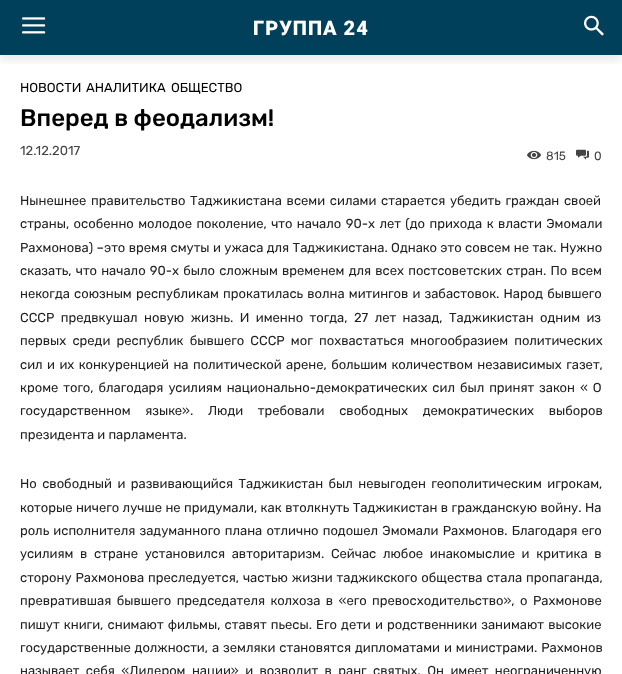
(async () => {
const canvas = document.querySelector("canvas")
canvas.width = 622
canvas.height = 674
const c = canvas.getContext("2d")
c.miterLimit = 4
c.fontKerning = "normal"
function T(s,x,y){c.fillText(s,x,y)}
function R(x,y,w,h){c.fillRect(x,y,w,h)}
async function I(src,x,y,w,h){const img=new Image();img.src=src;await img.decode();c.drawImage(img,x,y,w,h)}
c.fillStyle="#fff"
R(0,0,622,674)
c.fillStyle="#00405b"
R(0,0,622,55)
await I("1.png",22,17,24,17)
await I("2.png",584,15,20,21)
c.save()
c.beginPath()
c.rect(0,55,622,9)
c.clip()
c.fillStyle="#00000014"
c.filter="blur(4px)"
c.beginPath()
c.rect(0,6,622,55)
c.fill()
c.filter="none"
c.restore()
c.letterSpacing="1px"
c.font="900 20px Roboto"
c.fillStyle="#fff"
T("ГРУППА 24",253,35)
c.letterSpacing="0px"
c.font="13px Rubik"
c.fillStyle="#000"
T("НОВОСТИ",20,92)
T("АНАЛИТИКА",86,92)
T("ОБЩЕСТВО",171,92)
c.font="500 24px Rubik"
T("Вперед в феодализм!",20,126)
c.font="13px Rubik"
c.fillStyle="#444"
T("12.12.2017",20,155)
await I("3.png",527,150,14,10)
c.font="12px Rubik"
T("815",546,160)
await I("4.png",576,149,13,11)
T("0",594,160)
c.wordSpacing="1.5px"
c.font="13px Rubik"
c.fillStyle="#222"
T("Нынешнее правительство Таджикистана всеми силами старается убедить граждан своей",20,205)
c.wordSpacing="1.25px"
T("страны, особенно молодое поколение, что начало 90-х лет (до прихода к власти Эмомали",20,228)
c.wordSpacing="0.25px"
T("Рахмонова) –это время смуты и ужаса для Таджикистана. Однако это совсем не так. Нужно",20,252)
c.wordSpacing="1px"
T("сказать, что начало 90-х было сложным временем для всех постсоветских стран. По всем",20,275)
T("некогда союзным республикам прокатилась волна митингов и забастовок. Народ бывшего",20,298)
c.wordSpacing="3.25px"
T("СССР предвкушал новую жизнь. И именно тогда, 27 лет назад, Таджикистан одним из",20,322)
c.wordSpacing="3px"
T("первых среди республик бывшего СССР мог похвастаться многообразием политических",20,345)
c.wordSpacing="1.25px"
T("сил и их конкуренцией на политической арене, большим количеством независимых газет,",20,369)
c.wordSpacing="1.75px"
T("кроме того, благодаря усилиям национально-демократических сил был принят закон « О",20,392)
c.wordSpacing="11.5px"
T("государственном языке». Люди требовали свободных демократических выборов",20,415)
c.wordSpacing="0px"
T("президента и парламента.",20,439)
c.wordSpacing="2.25px"
T("Но свободный и развивающийся Таджикистан был невыгоден геополитическим игрокам,",20,488)
c.wordSpacing="0.3px"
T("которые ничего лучше не придумали, как втолкнуть Таджикистан в гражданскую войну. На",20,512)
c.wordSpacing="1px"
T("роль исполнителя задуманного плана отлично подошел Эмомали Рахмонов. Благодаря его",20,535)
c.wordSpacing="3.5px"
T("усилиям в стране установился авторитаризм. Сейчас любое инакомыслие и критика в",20,558)
c.wordSpacing="0.75px"
T("сторону Рахмонова преследуется, частью жизни таджикского общества стала пропаганда,",20,582)
c.wordSpacing="2.25px"
T("превратившая бывшего председателя колхоза в «его превосходительство», о Рахмонове",20,605)
c.wordSpacing="1px"
T("пишут книги, снимают фильмы, ставят пьесы. Его дети и родственники занимают высокие",20,629)
c.wordSpacing="0.75px"
T("государственные должности, а земляки становятся дипломатами и министрами. Рахмонов",20,652)
c.wordSpacing="3.25px"
T("называет себя «Лидером нации» и возводит в ранг святых. Он имеет неограниченную",20,675)
})()
